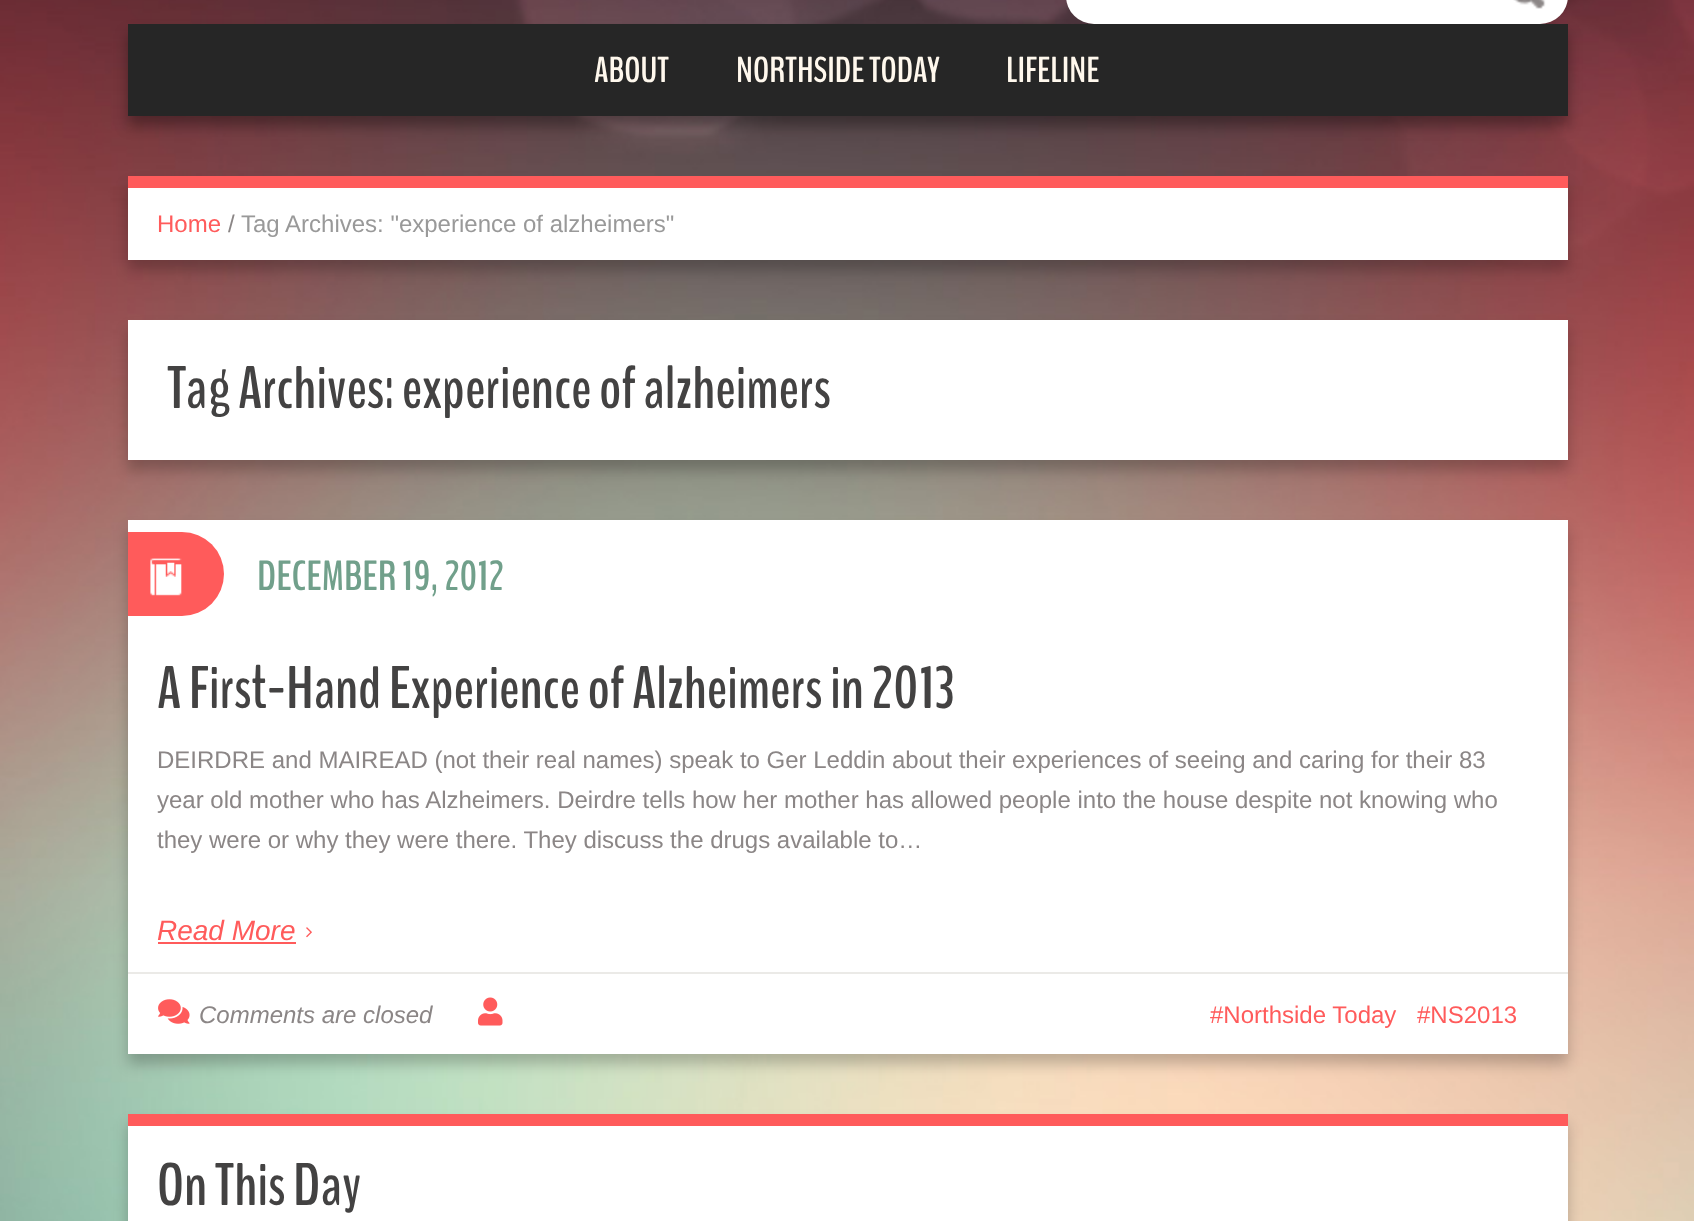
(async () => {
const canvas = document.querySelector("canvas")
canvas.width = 1694
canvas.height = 1221
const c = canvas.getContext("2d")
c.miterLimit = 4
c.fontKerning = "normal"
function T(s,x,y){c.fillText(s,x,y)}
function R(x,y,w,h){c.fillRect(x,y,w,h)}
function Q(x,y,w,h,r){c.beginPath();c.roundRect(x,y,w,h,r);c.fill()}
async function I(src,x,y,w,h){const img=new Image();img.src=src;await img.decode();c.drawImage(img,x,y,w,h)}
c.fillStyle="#fff"
R(0,0,1694,1221)
await I("1.png",0,0,1694,1221)
c.fillStyle="#00000054"
c.filter="blur(7px)"
c.beginPath()
c.rect(128,34,1440,92)
c.fill()
c.filter="none"
c.fillStyle="#fff"
Q(1066,-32,502,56,32)
await I("2.png",1513,0,33,9)
c.fillStyle="#262626"
R(128,24,1440,92)
c.font="bold 36px BenchNine"
c.fillStyle="#fff8ed"
T("ABOUT",594,82)
T("NORTHSIDE TODAY",736,82)
T("LIFELINE",1006,82)
c.fillStyle="#00000038"
c.filter="blur(7px)"
c.beginPath()
c.rect(128,186,1440,84)
c.fill()
c.filter="none"
c.fillStyle="#fff"
R(128,188,1440,72)
c.fillStyle="#ff5b5b"
R(128,176,1440,12)
c.font="24px Liberation Sans"
T("Home",157,232)
c.fillStyle="#8b8686"
T("/",228,232)
c.fillStyle="#999"
T("Tag Archives: \"experience of alzheimers\"",241,232)
c.fillStyle="#00000038"
c.filter="blur(7px)"
c.beginPath()
c.rect(128,330,1440,140)
c.fill()
c.filter="none"
c.fillStyle="#fff"
R(128,320,1440,140)
c.font="bold 60px BenchNine"
c.fillStyle="#434242"
T("Tag Archives: experience of alzheimers",167,408)
c.fillStyle="#00000038"
c.filter="blur(7px)"
c.beginPath()
c.rect(128,530,1440,534)
c.fill()
c.filter="none"
c.fillStyle="#fff"
R(128,520,1440,534)
c.fillStyle="#ff5b5b"
c.beginPath()
c.roundRect(128,532,96,84,[0,42,42,0])
c.fill()
await I("3.png",150,558,32,38)
c.font="bold 42px BenchNine"
c.fillStyle="#71a08b"
T("DECEMBER 19, 2012",257,590)
c.font="bold 60px BenchNine"
c.fillStyle="#434242"
T("A First-Hand Experience of Alzheimers in 2013",157,708)
c.font="24px Liberation Sans"
c.fillStyle="#8b8686"
T("DEIRDRE and MAIREAD (not their real names) speak to Ger Leddin about their experiences of seeing and caring for their 83",157,768)
T("year old mother who has Alzheimers. Deirdre tells how her mother has allowed people into the house despite not knowing who",157,808)
T("they were or why they were there. They discuss the drugs available to…",157,848)
c.font="italic 28px Liberation Sans"
c.fillStyle="#ff5b5b"
T("Read More",157,940)
R(158,942,138,2)
await I("4.png",306,927,6,11)
c.fillStyle="#ebeae7"
R(128,972,1440,2)
await I("5.png",158,999,32,25)
c.font="italic 24px Liberation Sans"
c.fillStyle="#8b8686"
T("Comments are closed",199,1023)
await I("6.png",478,997,25,29)
c.font="24px Liberation Sans"
c.fillStyle="#ff5b5b"
T("#Northside Today",1210,1023)
T("#NS2013",1417,1023)
c.fillStyle="#00000038"
c.filter="blur(7px)"
c.beginPath()
c.rect(128,1124,1440,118)
c.fill()
c.filter="none"
c.fillStyle="#fff"
R(128,1126,1440,95)
c.fillStyle="#ff5b5b"
R(128,1114,1440,12)
c.font="bold 60px BenchNine"
c.fillStyle="#434242"
T("On This Day",157,1205)
})()
